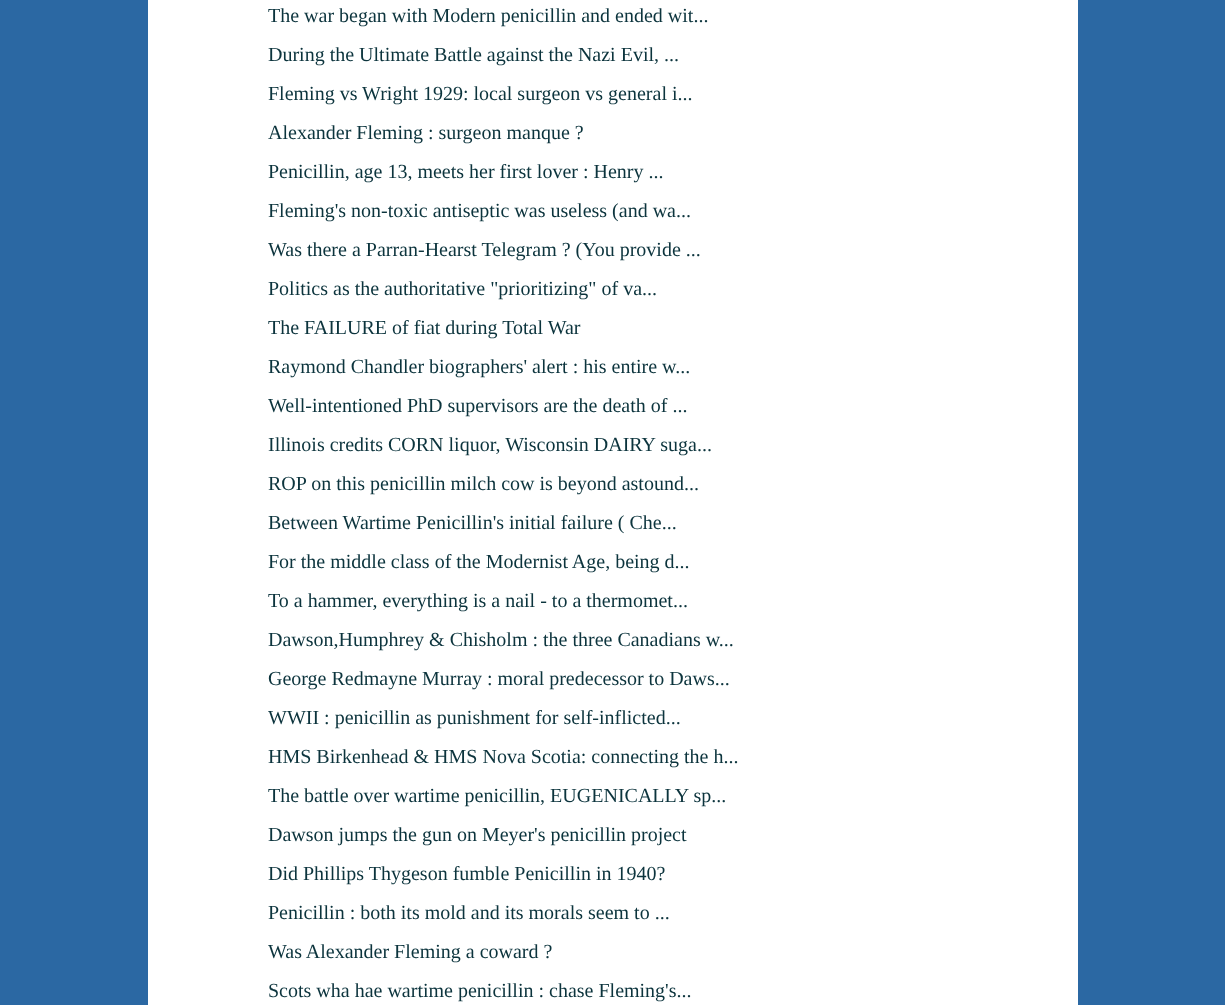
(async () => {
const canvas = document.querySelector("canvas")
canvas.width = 1225
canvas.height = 1005
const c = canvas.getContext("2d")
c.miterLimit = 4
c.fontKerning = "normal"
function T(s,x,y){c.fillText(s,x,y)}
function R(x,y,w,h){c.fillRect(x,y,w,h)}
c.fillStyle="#2b68a3"
R(0,0,1225,1005)
c.fillStyle="#fff"
R(148,0,930,1005)
c.font="20px Liberation Serif"
c.fillStyle="#0c343d"
T("The war began with Modern penicillin and ended wit...",268,22)
T("During the Ultimate Battle against the Nazi Evil, ...",268,61)
T("Fleming vs Wright 1929: local surgeon vs general i...",268,100)
T("Alexander Fleming : surgeon manque ?",268,139)
T("Penicillin, age 13, meets her first lover : Henry ...",268,178)
T("Fleming's non-toxic antiseptic was useless (and wa...",268,217)
T("Was there a Parran-Hearst Telegram ? (You provide ...",268,256)
T("Politics as the authoritative \"prioritizing\" of va...",268,295)
T("The FAILURE of fiat during Total War",268,334)
T("Raymond Chandler biographers' alert : his entire w...",268,373)
T("Well-intentioned PhD supervisors are the death of ...",268,412)
T("Illinois credits CORN liquor, Wisconsin DAIRY suga...",268,451)
T("ROP on this penicillin milch cow is beyond astound...",268,490)
T("Between Wartime Penicillin's initial failure ( Che...",268,529)
T("For the middle class of the Modernist Age, being d...",268,568)
T("To a hammer, everything is a nail - to a thermomet...",268,607)
T("Dawson,Humphrey & Chisholm : the three Canadians w...",268,646)
T("George Redmayne Murray : moral predecessor to Daws...",268,685)
T("WWII : penicillin as punishment for self-inflicted...",268,724)
T("HMS Birkenhead & HMS Nova Scotia: connecting the h...",268,763)
T("The battle over wartime penicillin, EUGENICALLY sp...",268,802)
T("Dawson jumps the gun on Meyer's penicillin project",268,841)
T("Did Phillips Thygeson fumble Penicillin in 1940?",268,880)
T("Penicillin : both its mold and its morals seem to ...",268,919)
T("Was Alexander Fleming a coward ?",268,958)
T("Scots wha hae wartime penicillin : chase Fleming's...",268,997)
})()
